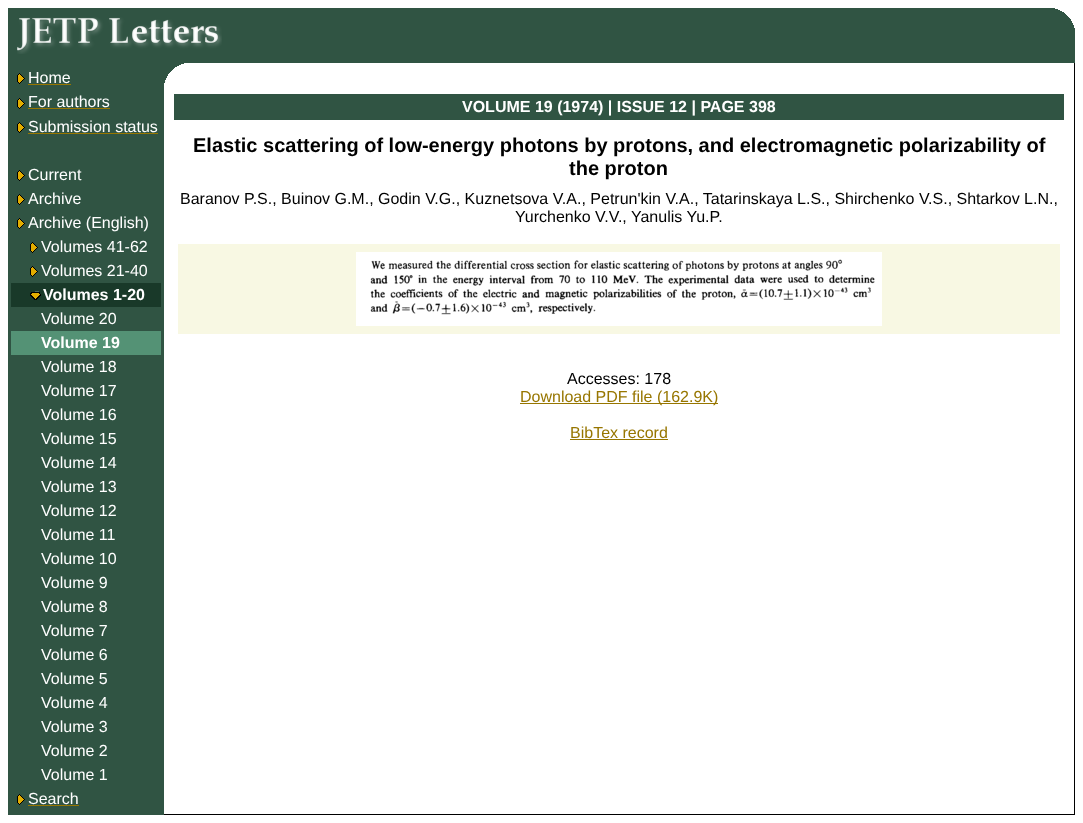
(async () => {
const canvas = document.querySelector("canvas")
canvas.width = 1083
canvas.height = 823
const c = canvas.getContext("2d")
c.miterLimit = 4
c.fontKerning = "normal"
function T(s,x,y){c.fillText(s,x,y)}
function R(x,y,w,h){c.fillRect(x,y,w,h)}
async function I(src,x,y,w,h){const img=new Image();img.src=src;await img.decode();c.drawImage(img,x,y,w,h)}
c.fillStyle="#fff"
R(0,0,1083,823)
c.fillStyle="#305443"
R(8,8,1067,55)
await I("1.png",1055,8,20,20)
await I("2.png",17,17,205,37)
R(8,63,156,752)
await I("3.png",17,73,8,11)
c.font="16px Liberation Sans"
c.fillStyle="#fff"
T("Home",28,83)
c.fillStyle="#977600"
R(28,84,43,1)
await I("3.png",17,98,8,11)
c.fillStyle="#fff"
T("For authors",28,107)
c.fillStyle="#977600"
R(28,108,82,1)
await I("3.png",17,122,8,11)
c.fillStyle="#fff"
T("Submission status",28,132)
c.fillStyle="#977600"
R(28,133,130,1)
await I("3.png",17,170,8,11)
c.fillStyle="#fff"
T("Current",28,180)
await I("3.png",17,194,8,11)
T("Archive",28,204)
await I("3.png",17,218,8,11)
T("Archive (English)",28,228)
await I("3.png",30,242,8,11)
T("Volumes 41-62",41,252)
await I("3.png",30,266,8,11)
T("Volumes 21-40",41,276)
c.fillStyle="#193929"
R(11,283,150,24)
await I("4.png",30,291,11,9)
c.font="bold 16px Liberation Sans"
c.fillStyle="#fff"
T("Volumes 1-20",43,300)
c.font="16px Liberation Sans"
T("Volume 20",41,324)
c.fillStyle="#549275"
R(11,331,150,24)
c.font="bold 16px Liberation Sans"
c.fillStyle="#fff"
T("Volume 19",41,348)
c.font="16px Liberation Sans"
T("Volume 18",41,372)
T("Volume 17",41,396)
T("Volume 16",41,420)
T("Volume 15",41,444)
T("Volume 14",41,468)
T("Volume 13",41,492)
T("Volume 12",41,516)
T("Volume 11",41,540)
T("Volume 10",41,564)
T("Volume 9",41,588)
T("Volume 8",41,612)
T("Volume 7",41,636)
T("Volume 6",41,660)
T("Volume 5",41,684)
T("Volume 4",41,708)
T("Volume 3",41,732)
T("Volume 2",41,756)
T("Volume 1",41,780)
await I("3.png",17,794,8,11)
T("Search",28,804)
c.fillStyle="#977600"
R(28,805,51,1)
await I("5.png",164,63,20,20)
c.fillStyle="#000"
R(1074,63,1,752)
R(164,814,911,1)
c.fillStyle="#305443"
R(174,94,890,26)
c.font="bold 16px Liberation Sans"
c.fillStyle="#fff"
T("VOLUME 19 (1974) | ISSUE 12 | PAGE 398",462,112)
c.font="bold 20px Liberation Sans"
c.fillStyle="#000"
T("Elastic scattering of low-energy photons by protons, and electromagnetic polarizability of",193,152)
T("the proton",569,175)
c.font="16px Liberation Sans"
T("Baranov P.S., Buinov G.M., Godin V.G., Kuznetsova V.A., Petrun'kin V.A., Tatarinskaya L.S., Shirchenko V.S., Shtarkov L.N.,",180,204)
T("Yurchenko V.V., Yanulis Yu.P.",515,222)
c.fillStyle="#f8f8e3"
R(178,244,882,90)
await I("6.png",356,252,526,74)
c.fillStyle="#000"
T("Accesses: 178",567,384)
c.fillStyle="#977600"
R(520,403,198,1)
T("Download PDF file (162.9K)",520,402)
T("BibTex record",570,438)
R(570,439,98,1)
})()
